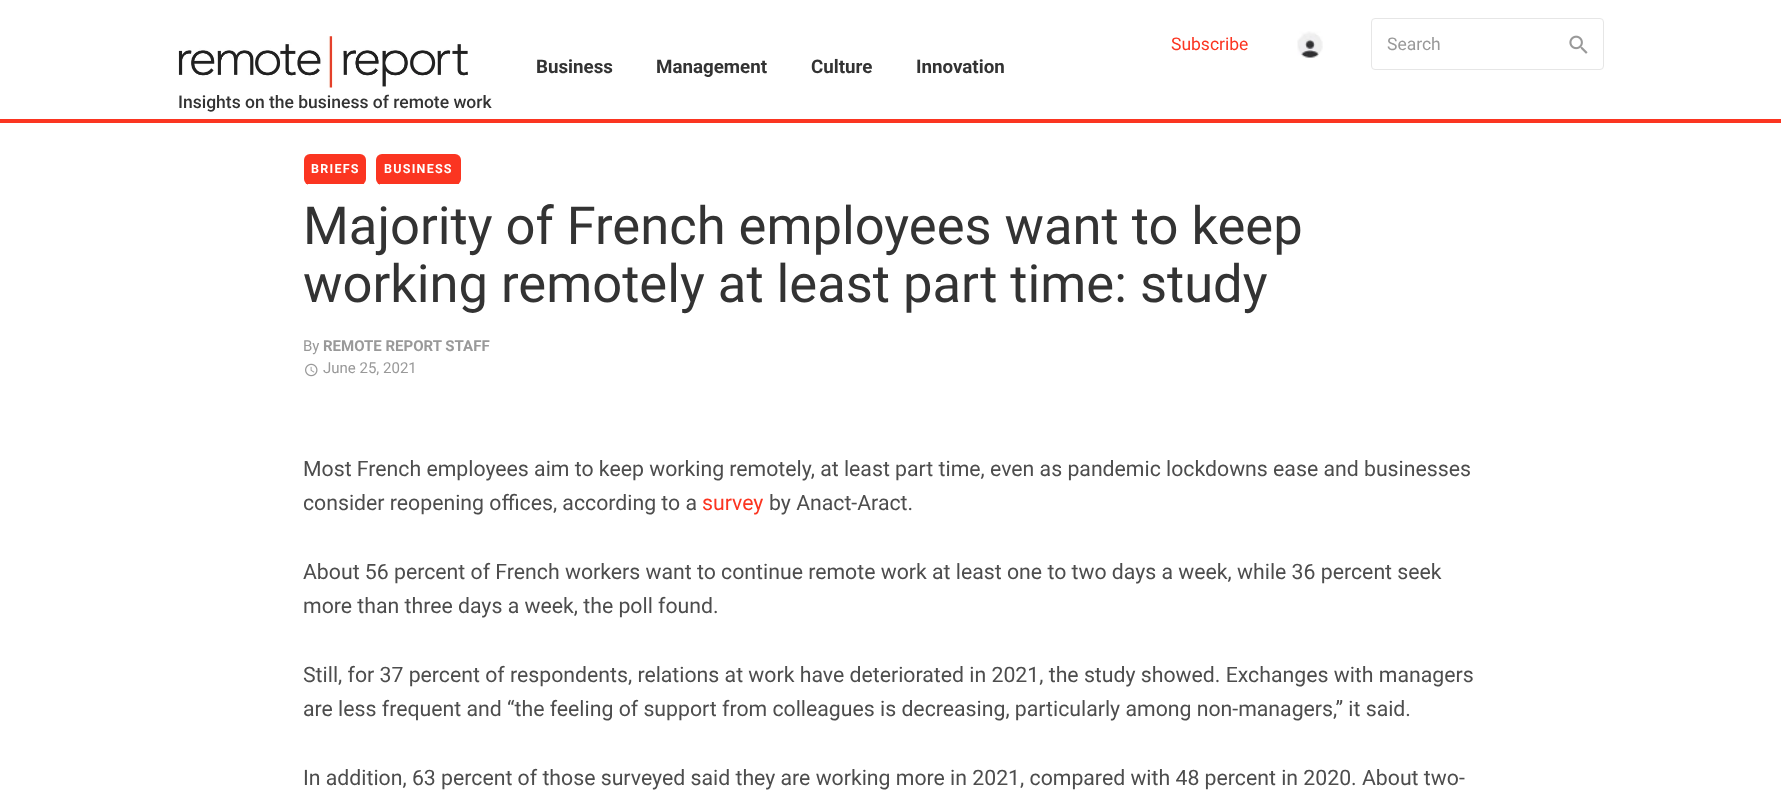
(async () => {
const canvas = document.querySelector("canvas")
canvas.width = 1781
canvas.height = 803
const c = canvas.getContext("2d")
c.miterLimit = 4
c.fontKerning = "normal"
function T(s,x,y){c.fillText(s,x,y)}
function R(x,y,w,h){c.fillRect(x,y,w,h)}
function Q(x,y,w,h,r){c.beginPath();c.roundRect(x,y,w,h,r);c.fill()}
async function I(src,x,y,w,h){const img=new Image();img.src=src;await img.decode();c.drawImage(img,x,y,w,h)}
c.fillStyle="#fff"
R(0,0,1781,803)
c.fillStyle="#fb3521"
R(0,119,1781,4)
c.font="17.5px Roboto"
T("Subscribe",1171,50)
await I("1.png",1297,31,26,27)
c.beginPath()
c.roundRect(1371.5,18.5,232,51,3.5)
c.strokeStyle="#e6e6e6"
c.stroke()
c.fillStyle="#999"
T("Search",1387,50)
await I("2.png",1569,35,19,19)
c.font="bold 18.75px Roboto"
c.fillStyle="#333"
T("Business",536,73)
T("Management",656,73)
T("Culture",811,73)
T("Innovation",916,73)
await I("3.png",178,36,290,52)
c.font="500 17.5px Roboto"
T("Insights on the business of remote work",178,108)
c.fillStyle="#fb3521"
Q(304,154,62,31,6)
c.fillStyle="#fff"
R(308,184,56,1)
c.letterSpacing="1.25px"
c.font="bold 12.5px Roboto"
T("BRIEFS",311,173)
c.fillStyle="#fb3521"
Q(376,154,85,31,6)
c.fillStyle="#fff"
R(380,184,79,1)
T("BUSINESS",384,173)
c.letterSpacing="0px"
c.font="52.5px Roboto"
c.fillStyle="#333"
T("Majority of French employees want to keep",303,244)
T("working remotely at least part time: study",303,302)
c.font="15px Roboto"
c.fillStyle="#999"
T("By",303,351)
c.font="bold 15px Roboto"
T("REMOTE REPORT STAFF",323,351)
await I("4.png",305,363,13,14)
c.font="15px Roboto"
T("June 25, 2021",323,373)
c.font="21.25px Roboto"
c.fillStyle="#4d4d4d"
T("Most French employees aim to keep working remotely, at least part time, even as pandemic lockdowns ease and businesses",303,476)
T("consider reopening offices, according to a",303,510)
c.fillStyle="#fb3521"
T("survey",702,510)
c.fillStyle="#4d4d4d"
T("by Anact-Aract.",769,510)
T("About 56 percent of French workers want to continue remote work at least one to two days a week, while 36 percent seek",303,579)
T("more than three days a week, the poll found.",303,613)
T("Still, for 37 percent of respondents, relations at work have deteriorated in 2021, the study showed. Exchanges with managers",303,682)
T("are less frequent and “the feeling of support from colleagues is decreasing, particularly among non-managers,” it said.",303,716)
T("In addition, 63 percent of those surveyed said they are working more in 2021, compared with 48 percent in 2020. About two-",303,785)
})()
